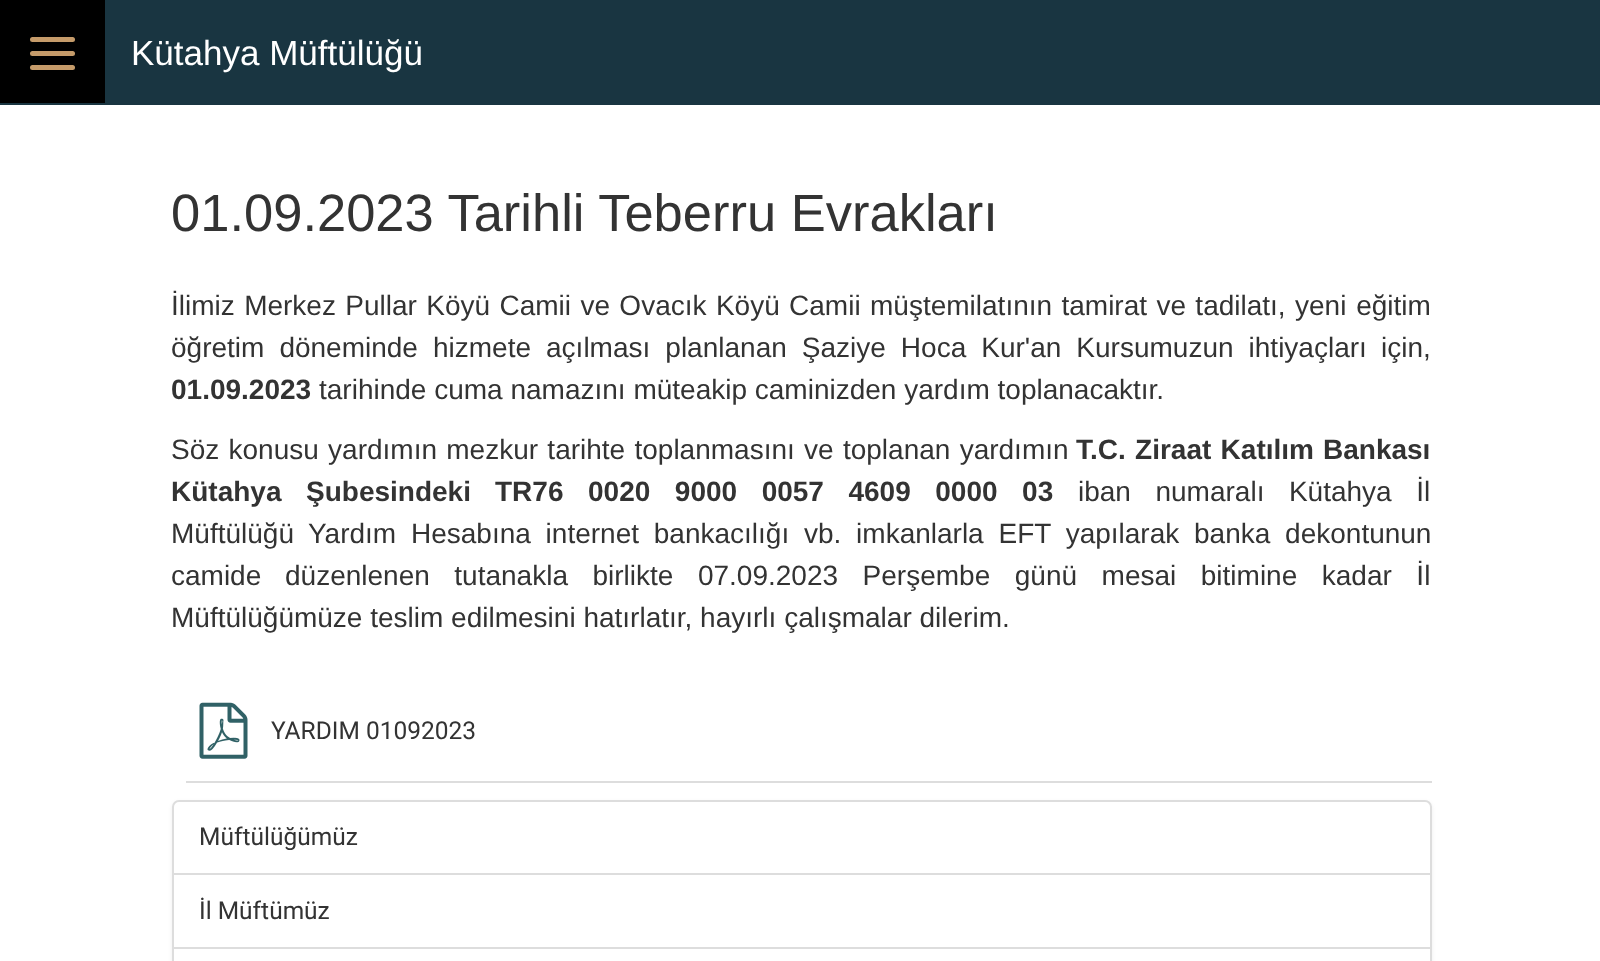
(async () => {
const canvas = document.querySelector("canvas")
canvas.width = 1600
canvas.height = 961
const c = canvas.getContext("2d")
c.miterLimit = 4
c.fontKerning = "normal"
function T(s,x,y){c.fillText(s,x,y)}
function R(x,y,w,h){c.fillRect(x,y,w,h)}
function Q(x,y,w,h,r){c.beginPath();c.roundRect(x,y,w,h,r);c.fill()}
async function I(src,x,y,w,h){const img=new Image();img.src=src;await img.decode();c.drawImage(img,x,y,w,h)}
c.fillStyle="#fff"
R(0,0,1600,961)
c.fillStyle="#193541"
R(0,0,1600,105)
c.fillStyle="#000"
R(0,0,105,103)
c.fillStyle="#c59b6a"
Q(30,37,45,5,2.5)
Q(30,51,45,5,2.5)
Q(30,65,45,5,2.5)
c.font="35px Liberation Sans"
c.fillStyle="#fff"
T("Kütahya Müftülüğü",131,65)
c.font="52.5px Liberation Sans"
c.fillStyle="#333"
T("01.09.2023 Tarihli Teberru Evrakları",171,231)
c.wordSpacing="1.6px"
c.font="28px Liberation Sans"
T("İlimiz Merkez Pullar Köyü Camii ve Ovacık Köyü Camii müştemilatının tamirat ve tadilatı,",171,315)
c.wordSpacing="2px"
T("yeni eğitim",1295,315)
c.wordSpacing="7.25px"
T("öğretim döneminde hizmete açılması planlanan Şaziye Hoca Kur'an Kursumuzun ihtiyaçları",171,357)
c.wordSpacing="0px"
T("için,",1381,357)
c.font="bold 28px Liberation Sans"
T("01.09.2023",171,399)
c.font="28px Liberation Sans"
T("tarihinde cuma namazını müteakip caminizden yardım toplanacaktır.",319,399)
c.wordSpacing="1.5px"
T("Söz konusu yardımın mezkur tarihte toplanmasını ve toplanan yardımın",171,459)
c.font="bold 28px Liberation Sans"
T("T.C. Ziraat Katılım",1076,459)
c.wordSpacing="0px"
T("Bankası",1323,459)
c.wordSpacing="16.75px"
T("Kütahya Şubesindeki",171,501)
T("TR76 0020 9000 0057 4609 0000 03",495,501)
c.font="28px Liberation Sans"
T("iban numaralı Kütahya İl",1078,501)
c.wordSpacing="0px"
T("Müftülüğü",171,543)
c.wordSpacing="7px"
T("Yardım Hesabına internet bankacılığı vb. imkanlarla EFT yapılarak banka dekontunun",308,543)
c.wordSpacing="0px"
T("camide",171,585)
c.wordSpacing="16.75px"
T("düzenlenen tutanakla birlikte 07.09.2023 Perşembe günü mesai bitimine kadar İl",285,585)
c.wordSpacing="0px"
T("Müftülüğümüze teslim edilmesini hatırlatır, hayırlı çalışmalar dilerim.",171,627)
c.fillStyle="#ddd"
R(186,781,1246,2)
await I("1.png",199,702,49,57)
c.font="24.5px Roboto"
c.fillStyle="#333"
T("YARDIM 01092023",271,739)
c.fillStyle="#00000012"
c.filter="blur(2px)"
c.beginPath()
c.roundRect(172,802,1260,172,7)
c.fill()
c.filter="none"
c.fillStyle="#fff"
c.beginPath()
c.roundRect(173,801,1258,73,[6,6,0,0])
c.fill()
c.strokeStyle="#ddd"
c.lineWidth=2
c.stroke()
c.fillStyle="#333"
T("Müftülüğümüz",199,845)
c.fillStyle="#fff"
c.beginPath()
c.rect(173,874,1258,74)
c.fill()
c.stroke()
c.fillStyle="#333"
T("İl Müftümüz",199,919)
c.fillStyle="#fff"
c.beginPath()
c.rect(173,948,1258,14)
c.fill()
c.stroke()
})()
